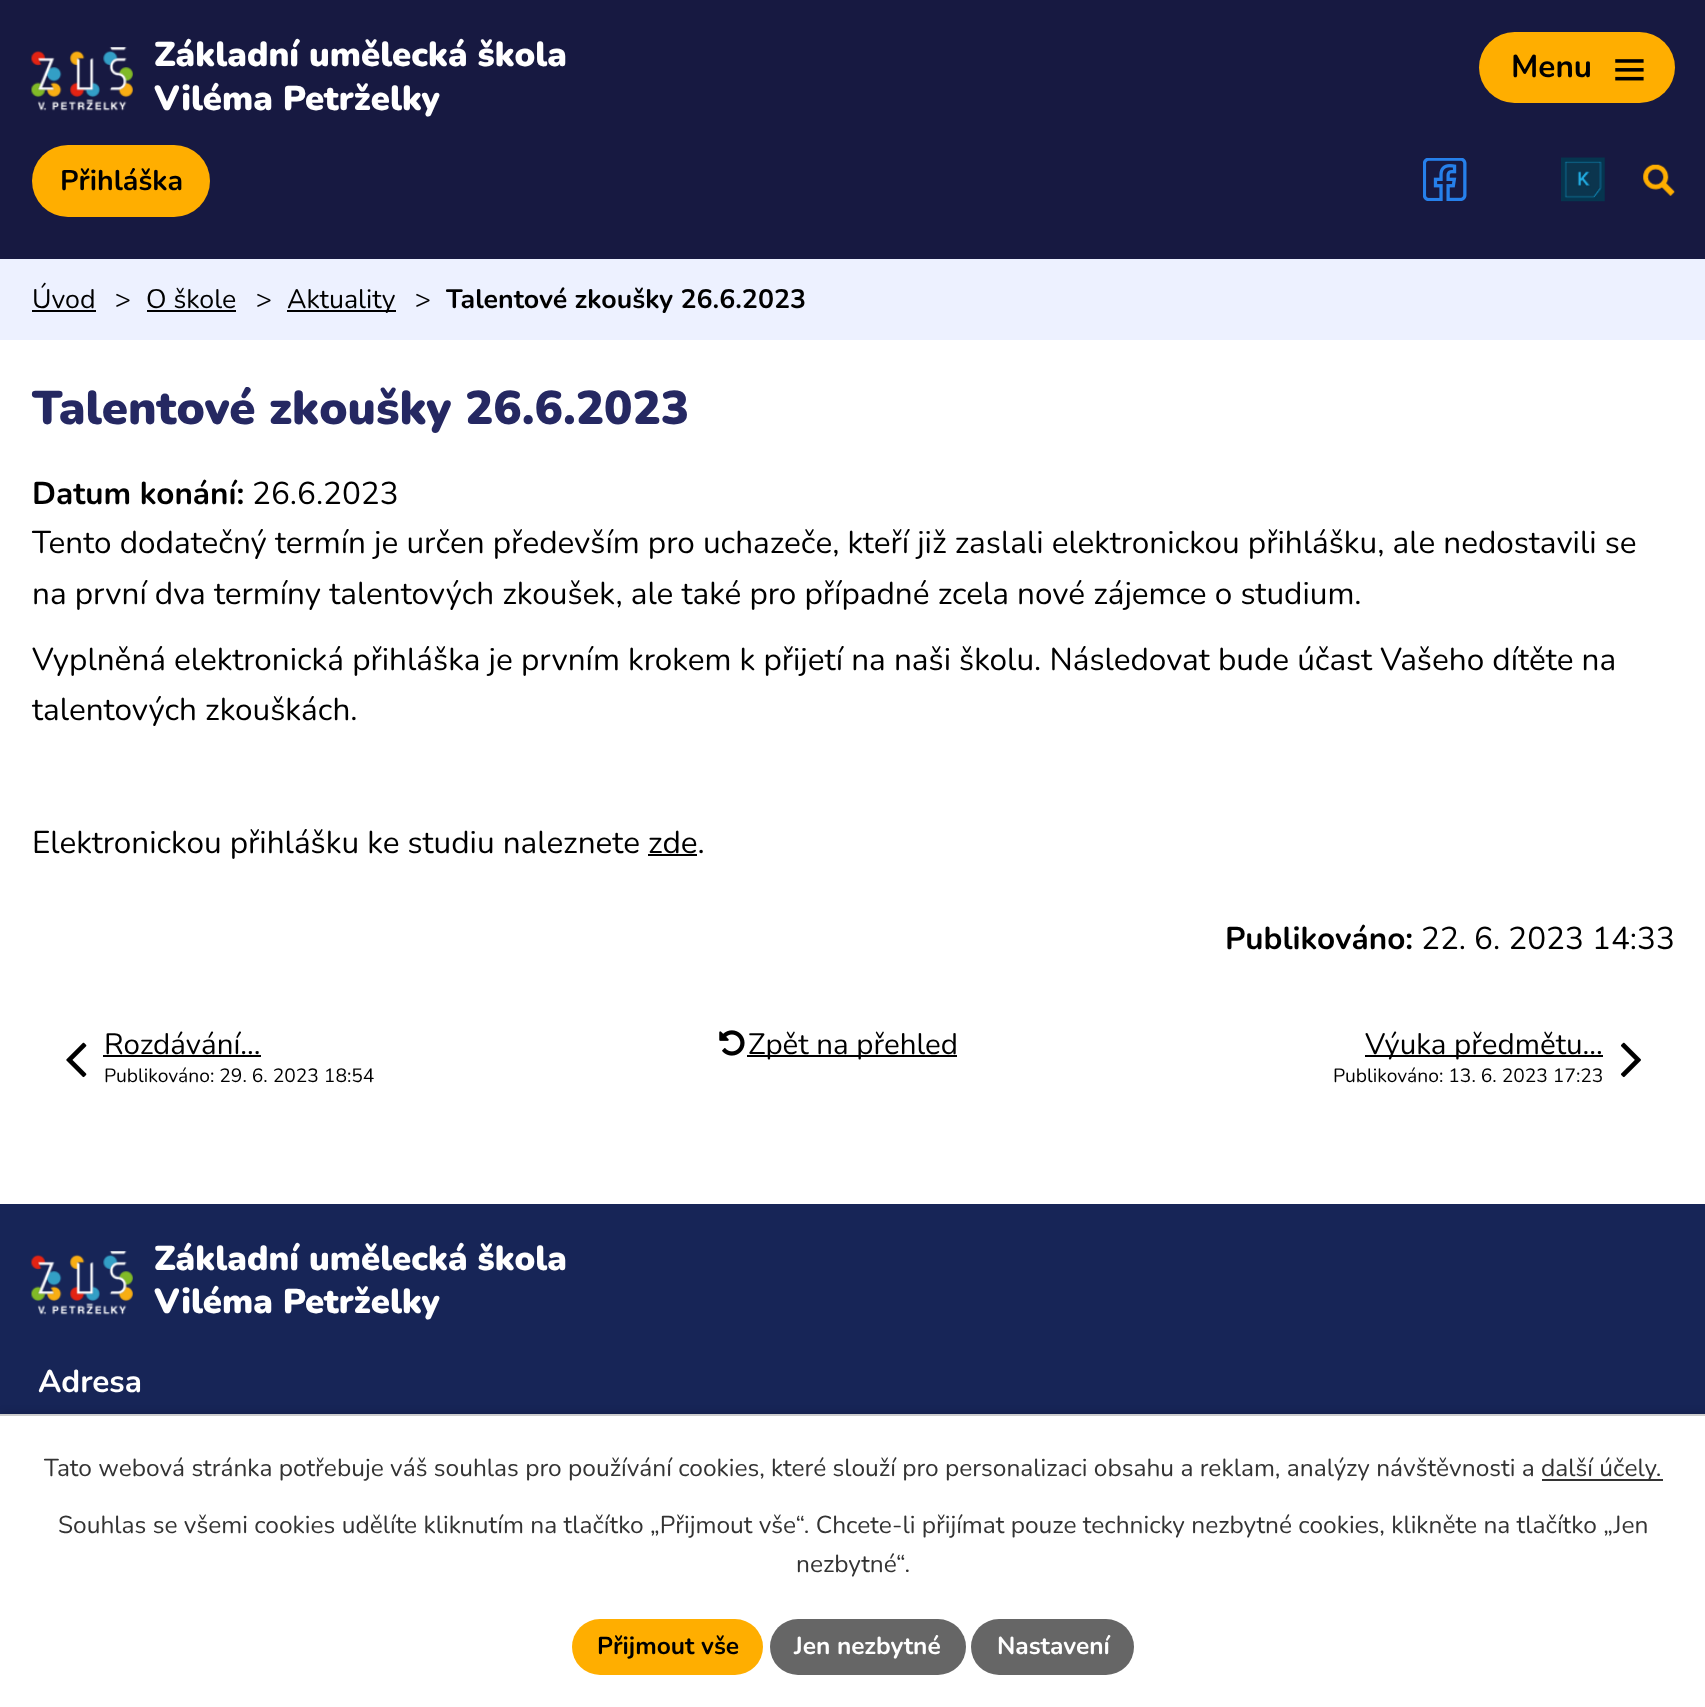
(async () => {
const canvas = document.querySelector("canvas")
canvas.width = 1705
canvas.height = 1707
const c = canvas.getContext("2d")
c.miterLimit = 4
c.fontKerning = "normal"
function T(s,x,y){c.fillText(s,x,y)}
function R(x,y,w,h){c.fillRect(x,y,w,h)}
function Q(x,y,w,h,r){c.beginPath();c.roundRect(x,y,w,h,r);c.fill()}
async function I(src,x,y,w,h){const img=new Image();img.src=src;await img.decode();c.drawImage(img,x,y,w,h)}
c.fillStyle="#fff"
R(0,0,1705,1707)
c.fillStyle="#171941"
R(0,0,1705,259)
await I("1.png",31,47,102,64)
c.font="900 34.6px Nunito"
c.fillStyle="#fff"
T("Základní umělecká škola",154,66)
T("Viléma Petrželky",154,110)
c.fillStyle="#ffae00"
Q(32,145,178,72,36)
c.font="bold 28.5px Nunito"
c.fillStyle="#000"
T("Přihláška",60,190)
await I("2.png",1423,158,44,43)
await I("3.png",1561,157,44,45)
await I("4.png",1643,164,32,32)
c.fillStyle="#ffae00"
Q(1479,32,196,71,35.5)
c.font="bold 31.5px Nunito"
c.fillStyle="#000"
T("Menu",1511,77)
await I("5.png",1615,59,29,22)
c.fillStyle="#edf1ff"
R(0,259,1705,81)
c.font="26.75px Nunito"
c.fillStyle="#000"
T("Úvod",32,308)
R(32,310,64,2)
T(">",115,308)
T("O škole",146,308)
R(147,310,89,2)
T(">",256,308)
R(287,310,109,2)
T("Aktuality",287,308)
T(">",415,308)
c.font="bold 26.75px Nunito"
T("Talentové zkoušky 26.6.2023",446,308)
c.font="900 47.25px Nunito"
c.fillStyle="#252862"
T("Talentové zkoušky 26.6.2023",32,424)
c.font="bold 31.5px Nunito"
c.fillStyle="#000"
T("Datum konání:",32,504)
c.font="31.5px Nunito"
T("26.6.2023",252,504)
T("Tento dodatečný termín je určen především pro uchazeče, kteří již zaslali elektronickou přihlášku, ale nedostavili se",32,553)
T("na první dva termíny talentových zkoušek, ale také pro případné zcela nové zájemce o studium.",32,604)
T("Vyplněná elektronická přihláška je prvním krokem k přijetí na naši školu. Následovat bude účast Vašeho dítěte na",32,670)
T("talentových zkouškách.",32,720)
T("Elektronickou přihlášku ke studiu naleznete zde.",32,853)
R(648,854,49,2)
c.font="bold 31.5px Nunito"
T("Publikováno:",1225,949)
c.font="31.5px Nunito"
T("22. 6. 2023 14:33",1421,949)
await I("6.png",66,1042,21,36)
c.font="29.5px Nunito"
T("Rozdávání…",104,1054)
R(103,1055,158,2)
c.font="19.25px Nunito"
T("Publikováno: 29. 6. 2023 18:54",104,1082)
await I("7.png",719,1030,26,26)
R(747,1055,210,2)
c.font="29.5px Nunito"
T("Zpět na přehled",748,1054)
R(1365,1055,238,2)
T("Výuka předmětu…",1365,1054)
c.font="19.25px Nunito"
T("Publikováno: 13. 6. 2023 17:23",1333,1082)
await I("8.png",1621,1042,20,36)
c.fillStyle="#172557"
R(0,1204,1705,210)
await I("9.png",31,1251,102,64)
c.font="900 34.6px Nunito"
c.fillStyle="#fff"
T("Základní umělecká škola",154,1270)
T("Viléma Petrželky",154,1313)
c.font="bold 31.5px Nunito"
T("Adresa",38,1392)
c.fillStyle="#00000033"
c.filter="blur(4.5px)"
c.beginPath()
c.rect(0,1414,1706,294)
c.fill()
c.filter="none"
c.fillStyle="#fff"
R(0,1416,1705,291)
c.fillStyle="#ccc"
R(0,1414,1705,2)
c.font="24.5px Nunito"
c.fillStyle="#333"
T("Tato webová stránka potřebuje váš souhlas pro používání cookies, které slouží pro personalizaci obsahu a reklam, analýzy návštěvnosti a",44,1476)
R(1542,1479,121,2)
T("další účely.",1541,1476)
T("Souhlas se všemi cookies udělíte kliknutím na tlačítko „Přijmout vše“. Chcete-li přijímat pouze technicky nezbytné cookies, klikněte na tlačítko „Jen",58,1533)
T("nezbytné“.",796,1572)
c.fillStyle="#ffae00"
Q(572,1619,191,56,28)
c.font="bold 24.5px Nunito"
c.fillStyle="#000"
T("Přijmout vše",597,1654)
c.fillStyle="#666"
Q(770,1619,196,56,28)
c.fillStyle="#fff"
T("Jen nezbytné",794,1654)
c.fillStyle="#666"
Q(971,1619,163,56,28)
c.fillStyle="#fff"
T("Nastavení",997,1654)
})()
